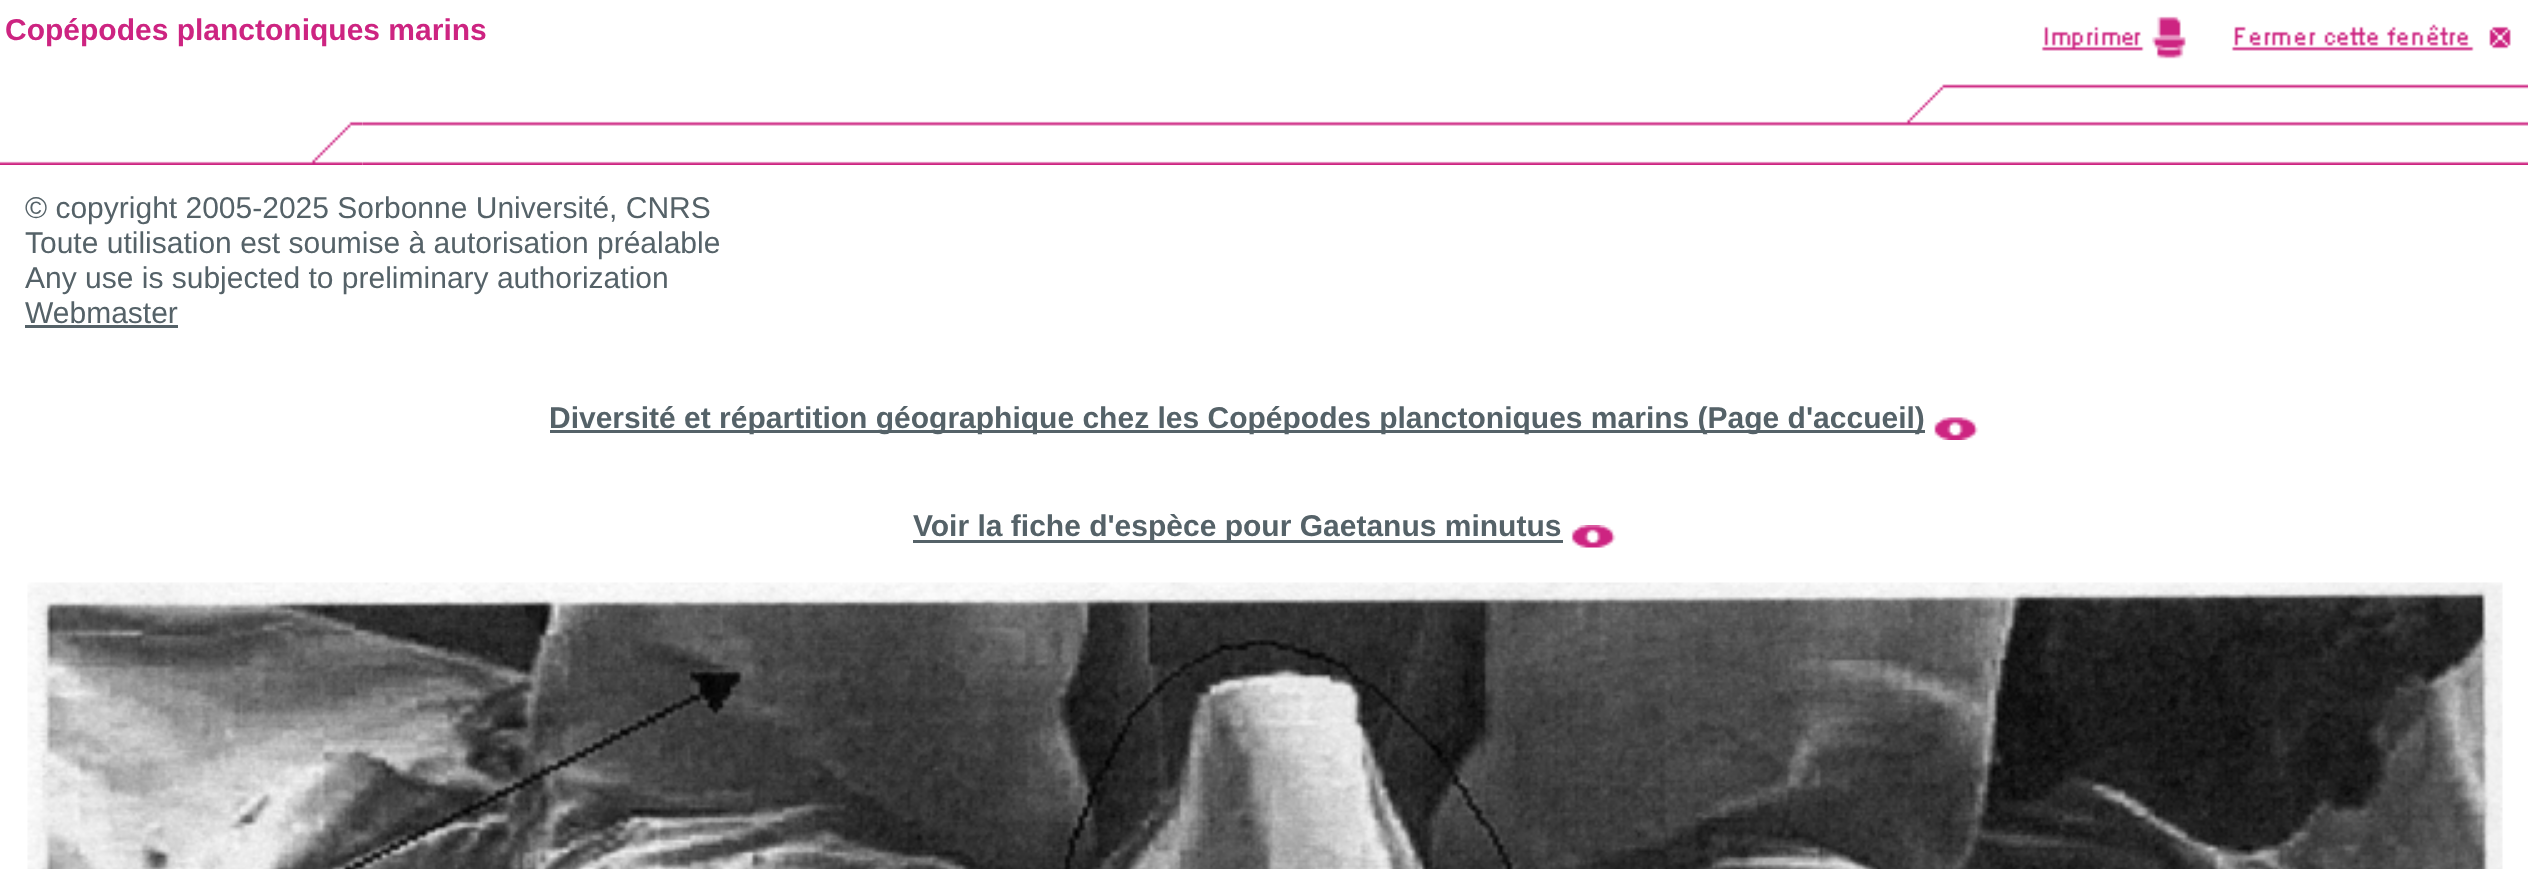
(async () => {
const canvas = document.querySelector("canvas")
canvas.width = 2528
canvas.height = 869
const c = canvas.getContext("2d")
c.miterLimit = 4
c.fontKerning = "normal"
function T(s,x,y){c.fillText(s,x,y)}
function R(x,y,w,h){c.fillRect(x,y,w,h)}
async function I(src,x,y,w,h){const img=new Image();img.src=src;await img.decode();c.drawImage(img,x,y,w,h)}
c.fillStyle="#fff"
R(0,0,2528,869)
await I("1.png",0,121,363,44)
await I("2.png",362,121,1043,44)
await I("3.png",1405,16,1123,149)
c.font="bold 30px Liberation Sans"
c.fillStyle="#cd2481"
T("Copépodes planctoniques marins",5,40)
c.font="30px Liberation Sans"
c.fillStyle="#556268"
T("© copyright 2005-2025 Sorbonne Université, CNRS",25,218)
T("Toute utilisation est soumise à autorisation préalable",25,253)
T("Any use is subjected to preliminary authorization",25,288)
T("Webmaster",25,323)
R(25,325,153,3)
R(550,430,1375,3)
c.font="bold 30px Liberation Sans"
T("Diversité et répartition géographique chez les Copépodes planctoniques marins (Page d'accueil)",549,428)
await I("4.png",1934,417,45,23)
R(913,540,650,3)
T("Voir la fiche d'espèce pour Gaetanus minutus",913,536)
await I("5.png",1571,525,45,23)
await I("6.png",27,582,2476,287)
})()
